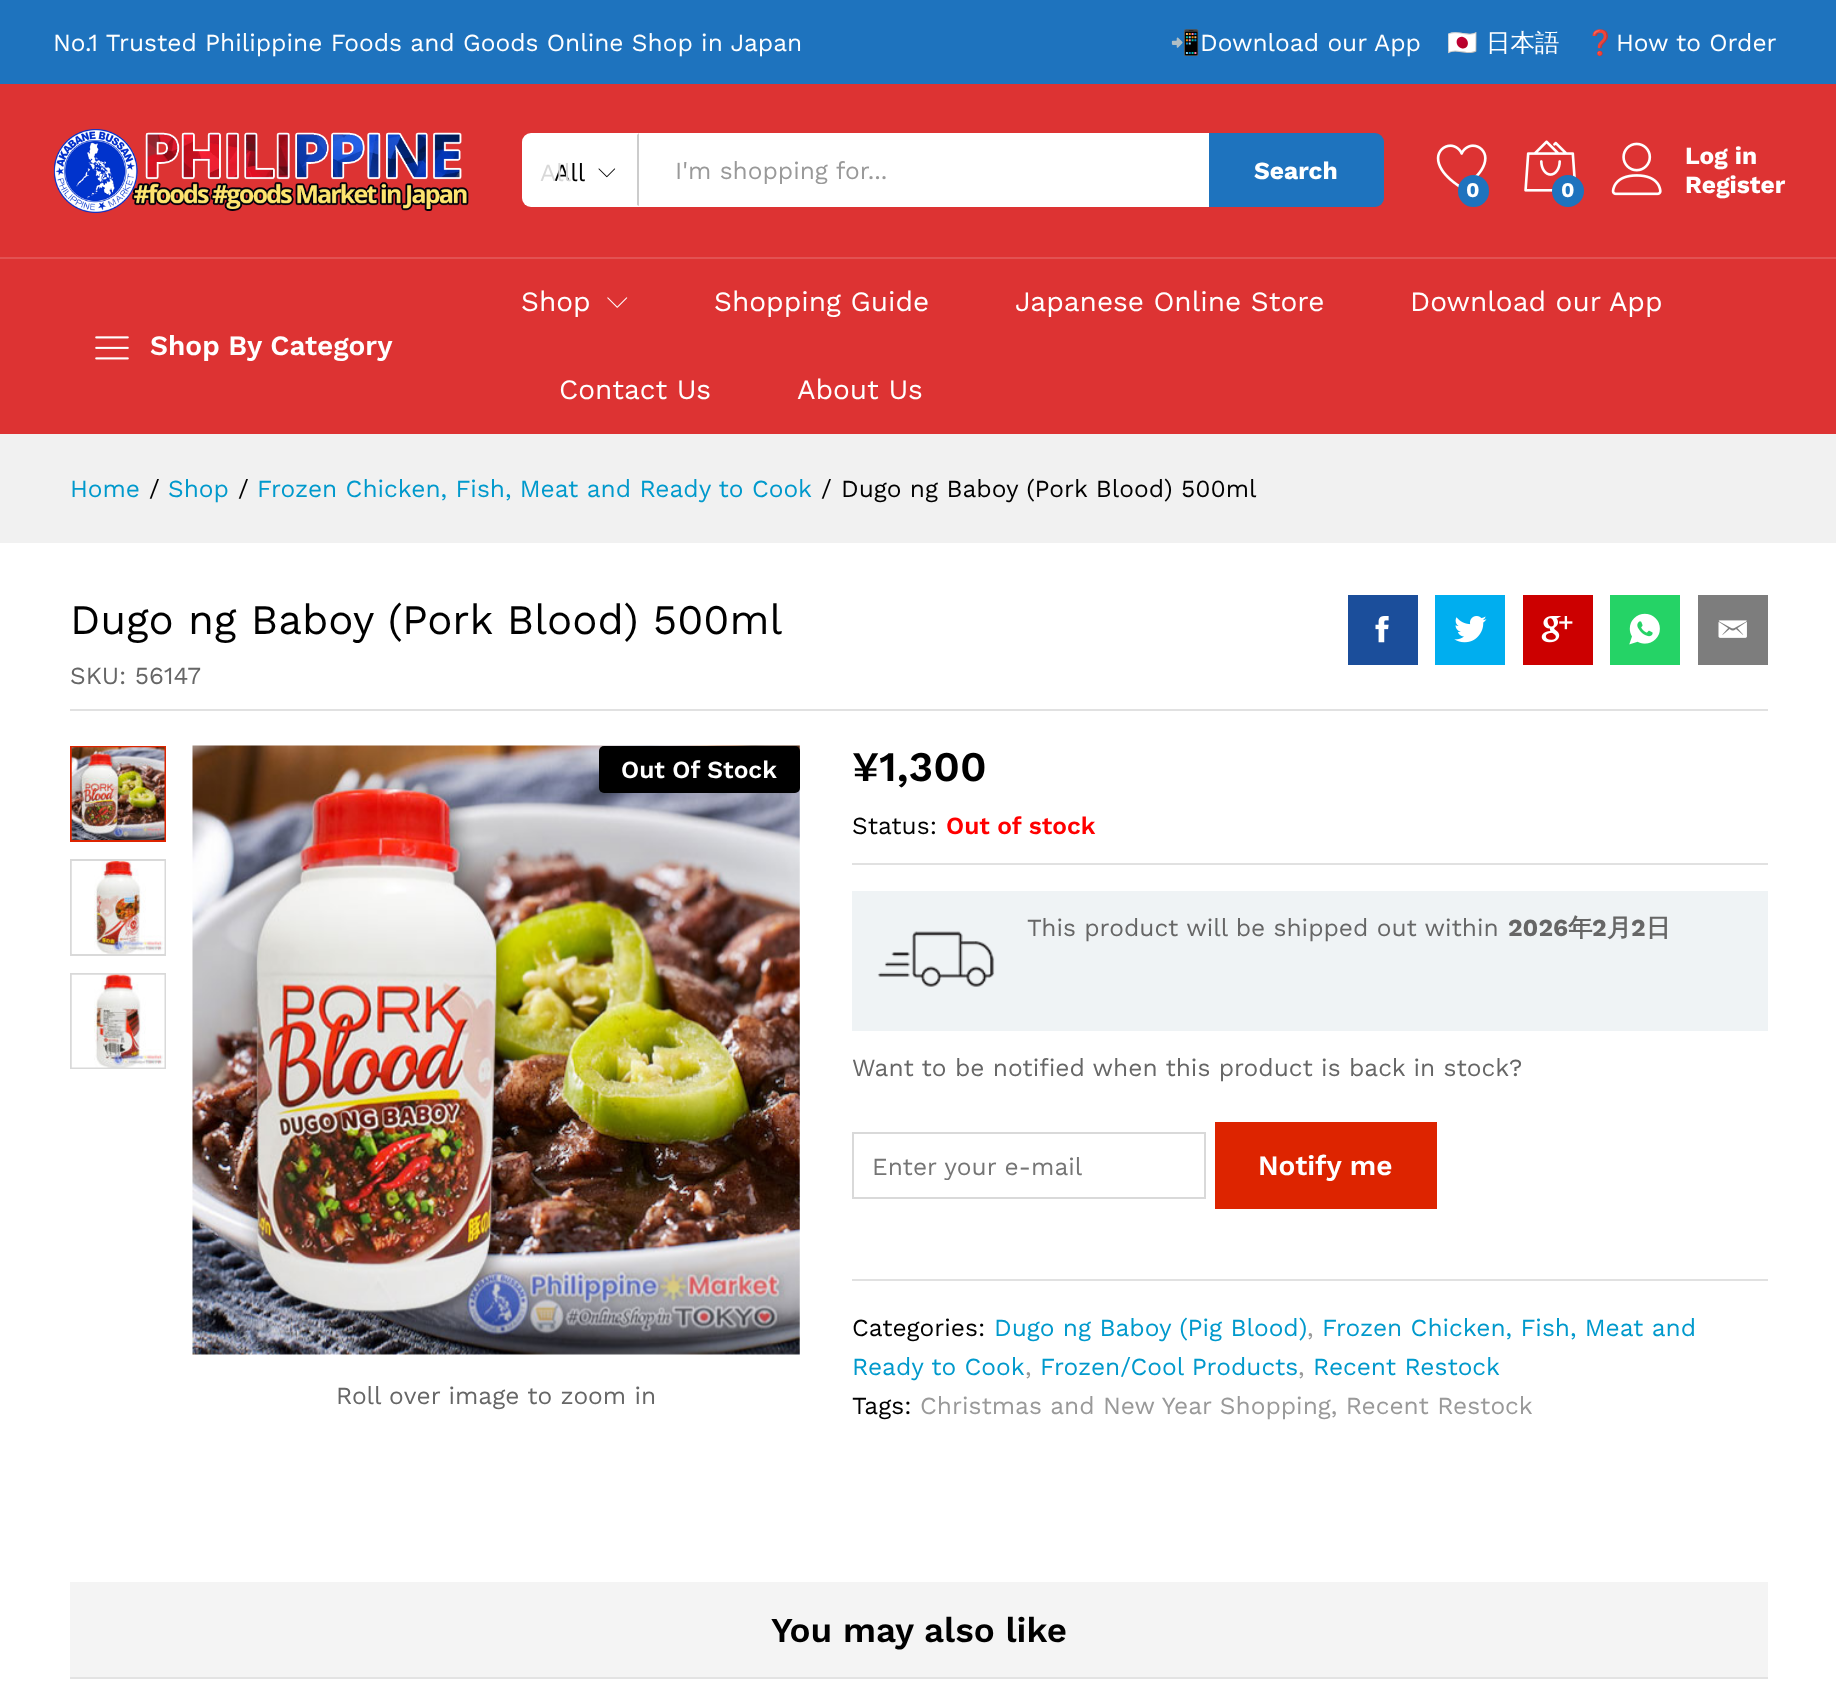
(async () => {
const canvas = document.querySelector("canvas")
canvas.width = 1836
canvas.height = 1690
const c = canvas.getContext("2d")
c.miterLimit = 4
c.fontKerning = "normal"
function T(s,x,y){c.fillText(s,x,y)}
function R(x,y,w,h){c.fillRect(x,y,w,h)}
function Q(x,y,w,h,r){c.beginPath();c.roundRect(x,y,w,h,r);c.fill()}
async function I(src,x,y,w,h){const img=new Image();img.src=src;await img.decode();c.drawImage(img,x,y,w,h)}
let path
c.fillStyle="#fff"
R(0,0,1836,1690)
c.fillStyle="#1e73be"
R(0,0,1836,84)
c.font="24.5px Work Sans"
c.fillStyle="#fff"
T("No.1 Trusted Philippine Foods and Goods Online Shop in Japan",53,51)
c.font="24.5px Noto Color Emoji"
T("📲",1170,51)
c.font="24.5px Work Sans"
T("Download our App",1200,51)
c.font="24.5px Noto Color Emoji"
T("🇯🇵",1447,51)
c.font="500 24.5px WenQuanYi Zen Hei"
T("日本語",1486,51)
c.font="24.5px Noto Color Emoji"
T("❓",1585,51)
c.font="24.5px Work Sans"
T("How to Order",1616,51)
c.fillStyle="#d33"
R(0,84,1836,350)
await I("1.png",53,129,416,84)
c.fillStyle="#fff"
c.beginPath()
c.roundRect(522,133,117,74,[9,0,0,9])
c.fill()
c.fillStyle="#000"
T("All",554,181)
c.fillStyle="#d8d8d8"
T("All",540,181)
c.fillStyle="#ccc"
path = new Path2D("M639 133v73l-2-1v-70z")
c.fill(path)
await I("2.png",598,168,18,10)
c.fillStyle="#fff"
R(639,133,570,74)
c.save()
c.beginPath()
c.rect(674,156,500,28)
c.clip()
c.fillStyle="#999"
T("I'm shopping for...",675,179)
c.restore()
c.fillStyle="#1e73be"
c.beginPath()
c.roundRect(1209,133,175,74,[0,9,9,0])
c.fill()
c.font="bold 24.5px Work Sans"
c.fillStyle="#fff"
T("Search",1254,179)
await I("3.png",1436,144,51,44)
c.fillStyle="#1e73be"
Q(1458,175,31,32,15.5)
c.font="bold 21px Work Sans"
c.fillStyle="#fff"
T("0",1466,197)
await I("4.png",1524,140,52,52)
c.fillStyle="#1e73be"
c.beginPath()
c.arc(1568,191,16,0,7)
c.fill()
c.fillStyle="#fff"
T("0",1561,197)
await I("5.png",1611,142,51,54)
c.font="bold 24.5px Work Sans"
T("Log in",1685,164)
T("Register",1685,193)
c.fillStyle="#e25252"
R(0,257,1836,2)
await I("6.png",95,336,34,24)
c.font="600 28px Work Sans"
c.fillStyle="#fff"
T("Shop By Category",150,355)
c.font="28px Work Sans"
T("Shop",521,311)
await I("7.png",607,297,21,11)
T("Shopping Guide",714,311)
T("Japanese Online Store",1015,311)
T("Download our App",1410,311)
T("Contact Us",559,399)
T("About Us",797,399)
c.fillStyle="#f1f1f1"
R(0,434,1836,109)
c.font="24.5px Work Sans"
c.fillStyle="#09c"
T("Home",70,497)
c.fillStyle="#000"
T("/",149,497)
c.fillStyle="#09c"
T("Shop",168,497)
c.fillStyle="#000"
T("/",238,497)
c.fillStyle="#09c"
T("Frozen Chicken, Fish, Meat and Ready to Cook",257,497)
c.fillStyle="#000"
T("/",821,497)
T("Dugo ng Baboy (Pork Blood) 500ml",841,497)
c.fillStyle="#e1e1e1"
R(70,709,1698,2)
c.font="42px Work Sans"
c.fillStyle="#000"
T("Dugo ng Baboy (Pork Blood) 500ml",70,634)
c.font="24.5px Work Sans"
c.fillStyle="#666"
T("SKU: 56147",70,684)
c.fillStyle="#1b4e9b"
R(1348,595,70,70)
await I("8.png",1375,616,14,27)
c.fillStyle="#00aeef"
R(1435,595,70,70)
await I("9.png",1454,616,33,27)
c.fillStyle="#c00"
R(1523,595,70,70)
await I("10.png",1541,616,32,27)
c.fillStyle="#25d366"
R(1610,595,70,70)
await I("11.png",1629,613,31,32)
c.fillStyle="#7d7d7d"
R(1698,595,70,70)
await I("12.png",1718,620,29,18)
c.strokeStyle="#dd2400"
c.lineWidth=2
c.strokeRect(71,747,94,94)
await I("13.png",71,747,94,93)
c.strokeStyle="#d9d9d9"
c.strokeRect(71,860,94,95)
await I("14.png",71,861,94,93)
c.strokeRect(71,974,94,94)
await I("15.png",71,974,94,94)
await I("16.png",192,745,608,610)
c.fillStyle="#000"
Q(599,746,201,47,5)
c.font="600 24.5px Work Sans"
c.fillStyle="#fff"
T("Out Of Stock",621,778)
c.font="24.5px Work Sans"
c.fillStyle="#666"
T("Roll over image to zoom in",336,1404)
c.font="600 42px Work Sans"
c.fillStyle="#000"
T("¥1,300",852,781)
c.fillStyle="#e1e1e1"
R(852,863,916,2)
c.font="24.5px Work Sans"
c.fillStyle="#000"
T("Status:",852,834)
c.font="600 24.5px Work Sans"
c.fillStyle="#f00"
T("Out of stock",946,834)
c.fillStyle="#eff3f5"
R(852,891,916,140)
await I("17.png",877,931,118,56)
c.font="24.5px Work Sans"
c.fillStyle="#666"
T("This product will be shipped out within",1027,936)
c.font="bold 24.5px Work Sans"
T("2026",1508,936)
c.font="bold 24.5px WenQuanYi Zen Hei"
T("年",1568,936)
c.font="bold 24.5px Work Sans"
T("2",1592,936)
c.font="bold 24.5px WenQuanYi Zen Hei"
T("月",1607,936)
c.font="bold 24.5px Work Sans"
T("2",1631,936)
c.font="bold 24.5px WenQuanYi Zen Hei"
T("日",1646,936)
c.font="24.5px Work Sans"
T("Want to be notified when this product is back in stock?",852,1076)
c.strokeRect(853,1133,352,65)
c.save()
c.beginPath()
c.rect(872,1152,315,28)
c.clip()
c.fillStyle="#757575"
T("Enter your e-mail",872,1175)
c.restore()
c.fillStyle="#dd2400"
R(1215,1122,222,87)
c.font="600 28px Work Sans"
c.fillStyle="#fff"
T("Notify me",1258,1175)
c.fillStyle="#e1e1e1"
R(852,1279,916,2)
c.font="24.5px Work Sans"
c.fillStyle="#000"
T("Categories:",852,1336)
c.fillStyle="#09c"
T("Dugo ng Baboy (Pig Blood)",994,1336)
c.fillStyle="#999"
T(",",1307,1336)
c.fillStyle="#09c"
T("Frozen Chicken, Fish, Meat and",1322,1336)
T("Ready to Cook",852,1375)
c.fillStyle="#999"
T(",",1025,1375)
c.fillStyle="#09c"
T("Frozen/Cool Products",1040,1375)
c.fillStyle="#999"
T(",",1298,1375)
c.fillStyle="#09c"
T("Recent Restock",1313,1375)
c.fillStyle="#000"
T("Tags:",852,1414)
c.fillStyle="#999"
T("Christmas and New Year Shopping, Recent Restock",920,1414)
c.fillStyle="#f4f4f4"
R(70,1582,1698,95)
c.fillStyle="#e3e3e3"
R(70,1677,1698,2)
c.font="600 35px Work Sans"
c.fillStyle="#000"
T("You may also like",771,1642)
})()
